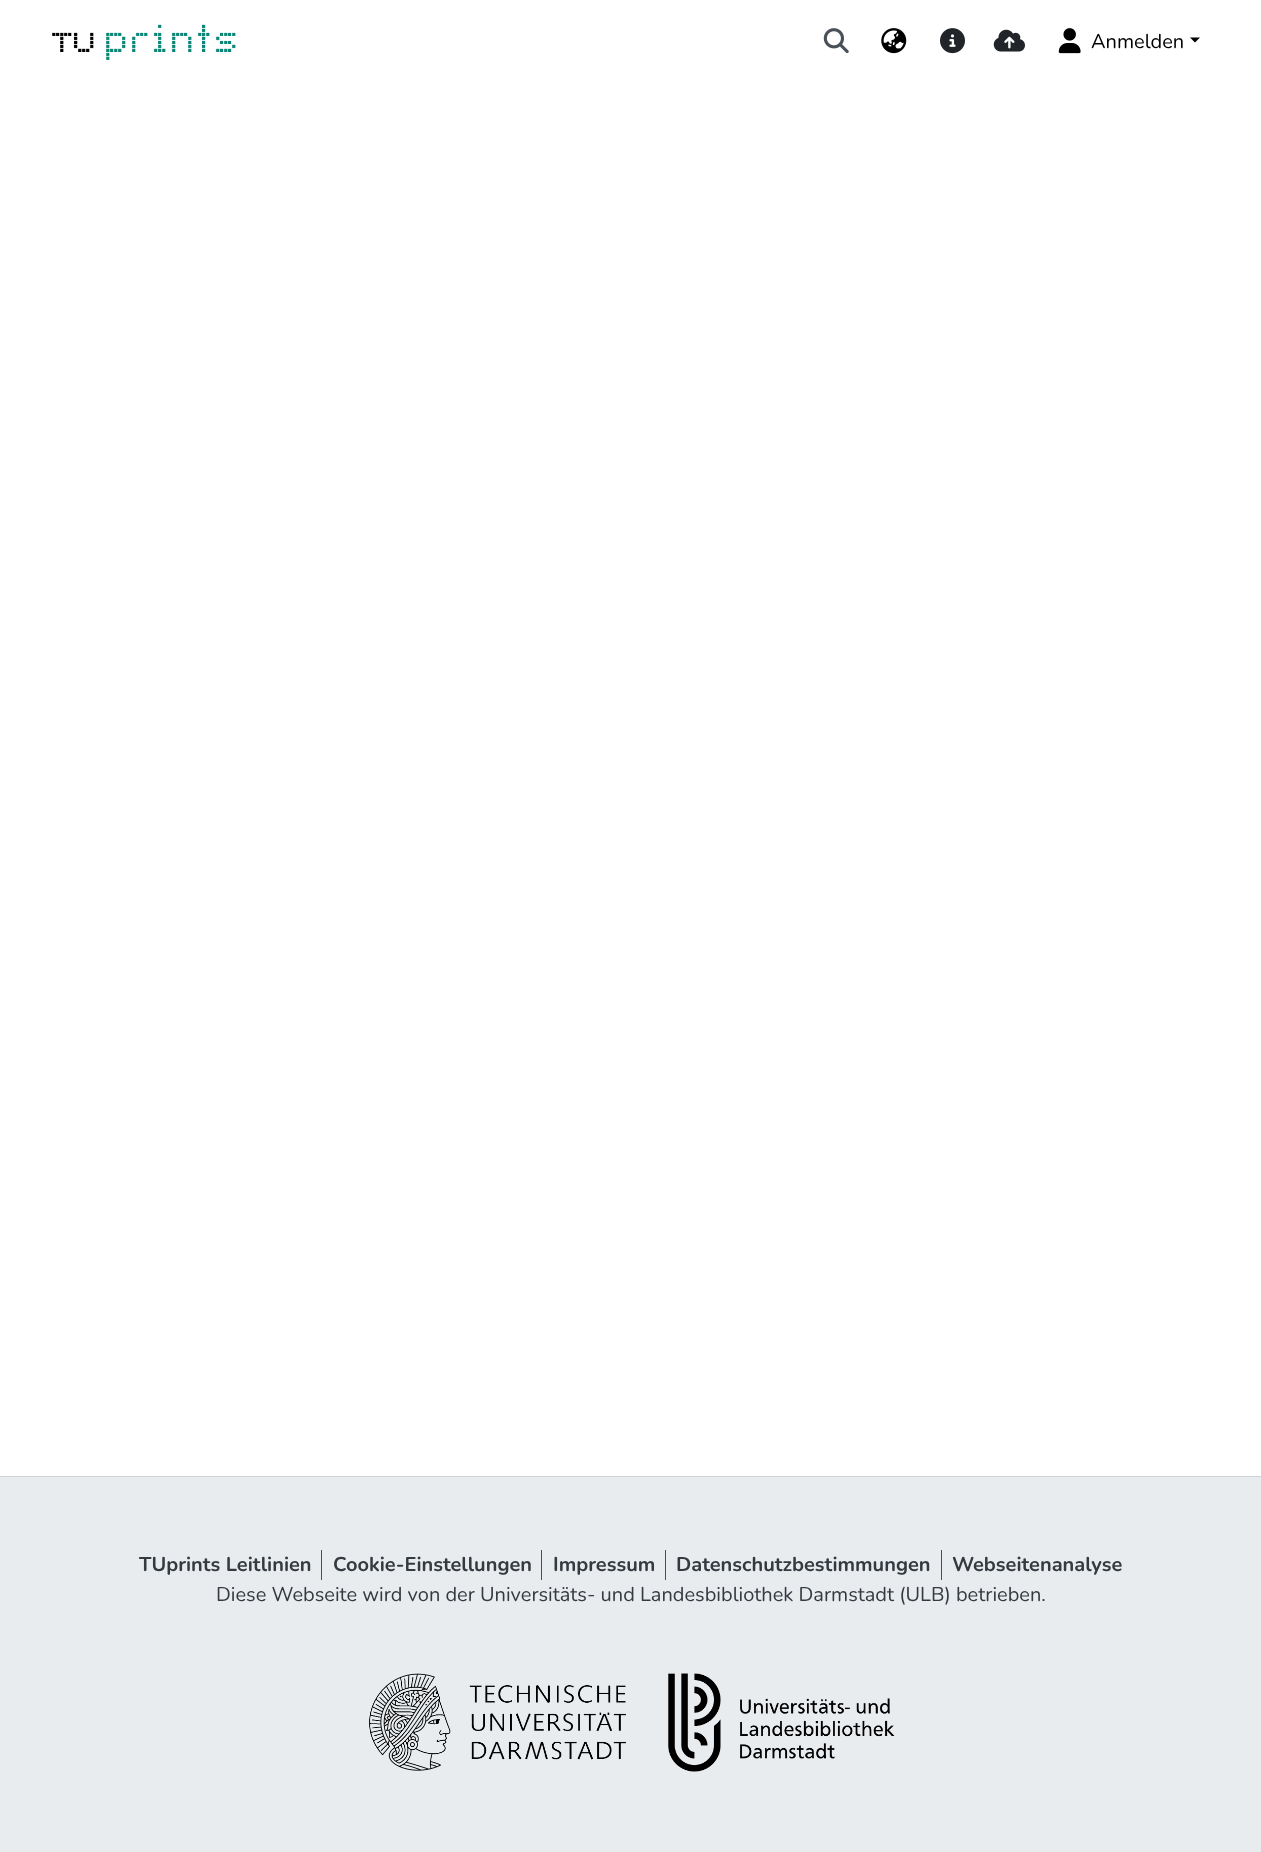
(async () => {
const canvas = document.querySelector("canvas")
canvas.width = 1261
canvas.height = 1852
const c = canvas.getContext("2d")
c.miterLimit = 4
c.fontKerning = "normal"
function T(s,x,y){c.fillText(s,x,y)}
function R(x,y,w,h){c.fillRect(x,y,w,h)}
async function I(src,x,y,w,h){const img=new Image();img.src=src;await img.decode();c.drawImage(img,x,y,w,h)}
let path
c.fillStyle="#fff"
R(0,0,1261,1852)
await I("1.png",52,24,184,36)
await I("2.png",823,28,26,26)
await I("3.png",881,28,26,26)
await I("4.png",940,28,25,26)
await I("5.png",993,29,32,23)
await I("6.png",1058,28,23,26)
c.font="20px Nunito"
c.fillStyle="#000"
T("Anmelden",1091,48)
path = new Path2D("M1190 37.5h10l-5 5z")
c.fill(path)
c.fillStyle="#e9ecef"
R(0,1477,1261,375)
c.fillStyle="#ced4da"
R(0,1476,1261,1)
c.font="bold 20px Nunito"
c.fillStyle="#343a40"
T("TUprints Leitlinien",139,1571)
c.fillStyle="#495057"
R(321,1550,1,30)
c.fillStyle="#343a40"
T("Cookie-Einstellungen",333,1571)
c.fillStyle="#495057"
R(541,1550,1,30)
c.fillStyle="#343a40"
T("Impressum",553,1571)
c.fillStyle="#495057"
R(665,1550,1,30)
c.fillStyle="#343a40"
T("Datenschutzbestimmungen",676,1571)
c.fillStyle="#495057"
R(941,1550,1,30)
c.fillStyle="#343a40"
T("Webseitenanalyse",952,1571)
c.font="20px Nunito"
T("Diese Webseite wird von der Universitäts- und Landesbibliothek Darmstadt (ULB) betrieben.",216,1601)
await I("7.png",369,1673,257,98)
await I("8.png",668,1673,227,99)
})()
